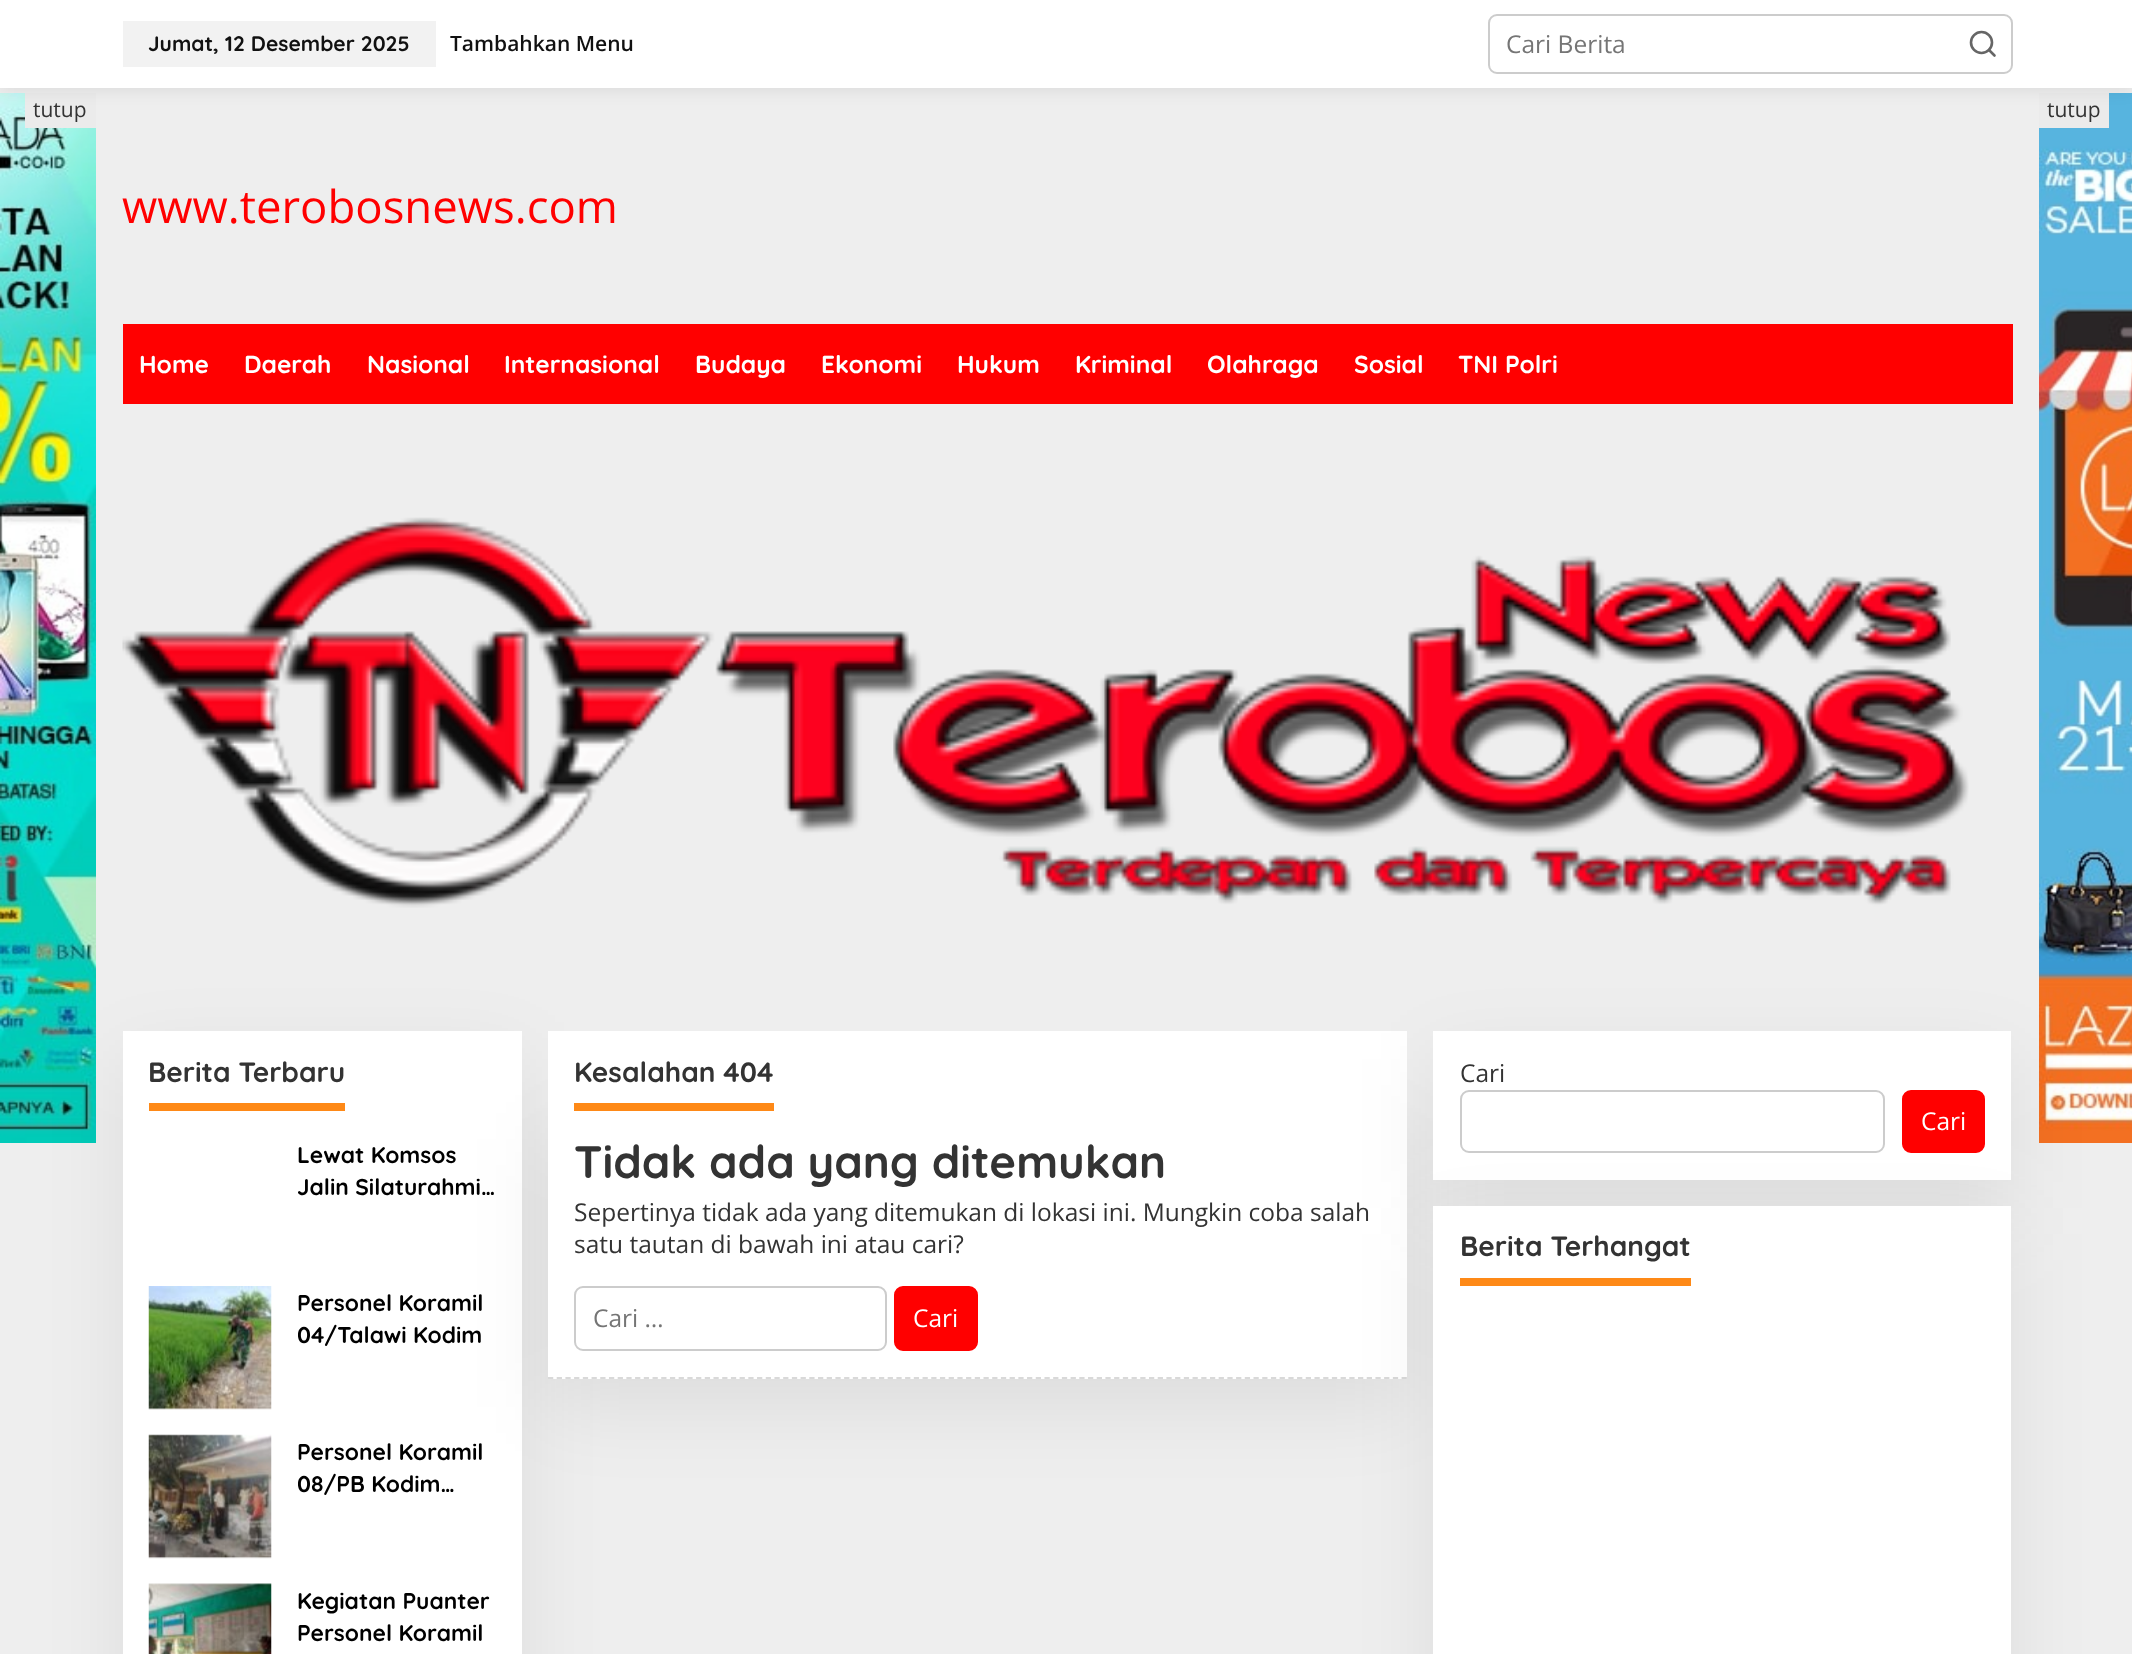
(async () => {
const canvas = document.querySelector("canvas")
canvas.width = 2132
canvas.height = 1654
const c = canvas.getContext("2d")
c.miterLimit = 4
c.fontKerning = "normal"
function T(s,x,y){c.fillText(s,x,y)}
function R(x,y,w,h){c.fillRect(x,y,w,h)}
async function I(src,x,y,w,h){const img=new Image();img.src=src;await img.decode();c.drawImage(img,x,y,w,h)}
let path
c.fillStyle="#eee"
R(0,0,2132,1654)
await I("1.png",0,93,96,1050)
c.fillStyle="#ebebeb"
R(25,93,71,35)
await I("2.png",2039,93,93,1050)
R(2039,93,70,35)
c.fillStyle="#0000001a"
c.filter="blur(9px)"
c.beginPath()
c.rect(0,0,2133,88)
c.fill()
c.filter="none"
c.fillStyle="#fff"
R(0,0,2132,88)
c.fillStyle="#f2f2f2"
R(123,21,313,46)
c.font="bold 21px Quicksand"
c.fillStyle="#111"
T("Jumat, 12 Desember 2025",148,51)
c.font="600 21px Open Sans"
T("Tambahkan Menu",450,51)
c.beginPath()
c.roundRect(1489,15,523,58,8)
c.strokeStyle="#ccc"
c.lineWidth=2
c.stroke()
c.font="24.5px Open Sans"
c.fillStyle="#757575"
T("Cari Berita",1506,53)
c.beginPath()
c.arc(1981.5,42.5,10.5,0,7)
c.strokeStyle="#666"
c.lineWidth=2.6
c.stroke()
path = new Path2D("M1994.5 55.5l-5.5-5.5")
c.lineCap="round"
c.lineJoin="round"
c.stroke(path)
c.font="21px Open Sans"
c.fillStyle="#333"
T("tutup",33,117)
T("tutup",2047,117)
await I("3.png",122,517,1847,391)
c.fillStyle="#00000012"
c.filter="blur(39.5px)"
c.beginPath()
c.rect(123,1059,399,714)
c.fill()
c.filter="none"
c.fillStyle="#fff"
R(123,1031,399,623)
c.fillStyle="#fe8917"
R(149,1103,196,8)
c.font="bold 28px Quicksand"
c.fillStyle="#333"
T("Berita Terbaru",148,1082)
c.font="bold 22.75px Quicksand"
c.fillStyle="#000"
T("Lewat Komsos",297,1163)
c.save()
c.beginPath()
c.rect(298,1138,197,64)
c.clip()
T("Jalin Silaturahmi…",297,1195)
c.restore()
await I("4.png",148,1286,124,124)
T("Personel Koramil",297,1311)
c.save()
c.beginPath()
c.rect(298,1286,197,65)
c.clip()
T("04/Talawi Kodim",297,1343)
c.restore()
await I("5.png",148,1434,124,125)
T("Personel Koramil",297,1460)
c.save()
c.beginPath()
c.rect(298,1435,197,65)
c.clip()
T("08/PB Kodim…",297,1492)
c.restore()
await I("6.png",148,1583,124,71)
T("Kegiatan Puanter",297,1609)
T("Personel Koramil",297,1641)
c.fillStyle="#00000012"
c.filter="blur(39.5px)"
c.beginPath()
c.rect(548,1139,859,268)
c.fill()
c.filter="none"
c.fillStyle="#fff"
R(548,1031,859,348)
c.fillStyle="#fe8917"
R(574,1103,200,8)
c.font="bold 28px Quicksand"
c.fillStyle="#333"
T("Kesalahan 404",574,1082)
path = new Path2D("M548 1378h859")
c.strokeStyle="#d9d9d9"
c.lineWidth=1.8
c.lineCap="butt"
c.lineJoin="miter"
c.setLineDash([5.25,3.46])
c.stroke(path)
c.font="bold 45.5px Quicksand"
T("Tidak ada yang ditemukan",574,1178)
c.font="24.5px Open Sans"
T("Sepertinya tidak ada yang ditemukan di lokasi ini. Mungkin coba salah",574,1221)
T("satu tautan di bawah ini atau cari?",574,1253)
c.beginPath()
c.roundRect(575,1287,311,63,8)
c.strokeStyle="#ccc"
c.lineWidth=2
c.setLineDash([])
c.stroke()
c.fillStyle="#757575"
T("Cari …",593,1327)
c.fillStyle="#f00"
c.beginPath()
c.roundRect(895,1287,82,63,8)
c.fill()
c.strokeStyle="#f00"
c.stroke()
c.fillStyle="#fff"
T("Cari",913,1327)
c.fillStyle="#00000012"
c.filter="blur(39.5px)"
c.beginPath()
c.rect(1433,1059,578,149)
c.fill()
c.filter="none"
c.fillStyle="#fff"
R(1433,1031,578,149)
c.fillStyle="#333"
T("Cari",1460,1082)
c.fillStyle="#00000012"
c.filter="blur(39.5px)"
c.beginPath()
c.rect(1433,1234,578,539)
c.fill()
c.filter="none"
c.beginPath()
c.roundRect(1461,1091,423,61,8)
c.strokeStyle="#ccc"
c.stroke()
c.fillStyle="#f00"
c.beginPath()
c.roundRect(1903,1091,81,61,8)
c.fill()
c.strokeStyle="#f00"
c.stroke()
c.fillStyle="#fff"
T("Cari",1921,1130)
R(1433,1206,578,448)
c.fillStyle="#fe8917"
R(1460,1278,231,8)
c.font="bold 28px Quicksand"
c.fillStyle="#333"
T("Berita Terhangat",1460,1256)
c.font="45.5px Open Sans"
c.fillStyle="#f00"
T("www.terobosnews.com",122,223)
R(123,324,1890,80)
c.font="bold 24.5px Quicksand"
c.fillStyle="#fff"
T("Home",139,373)
T("Daerah",244,373)
T("Nasional",367,373)
T("Internasional",504,373)
T("Budaya",695,373)
T("Ekonomi",821,373)
T("Hukum",957,373)
T("Kriminal",1075,373)
T("Olahraga",1207,373)
T("Sosial",1354,373)
T("TNI Polri",1458,373)
})()
